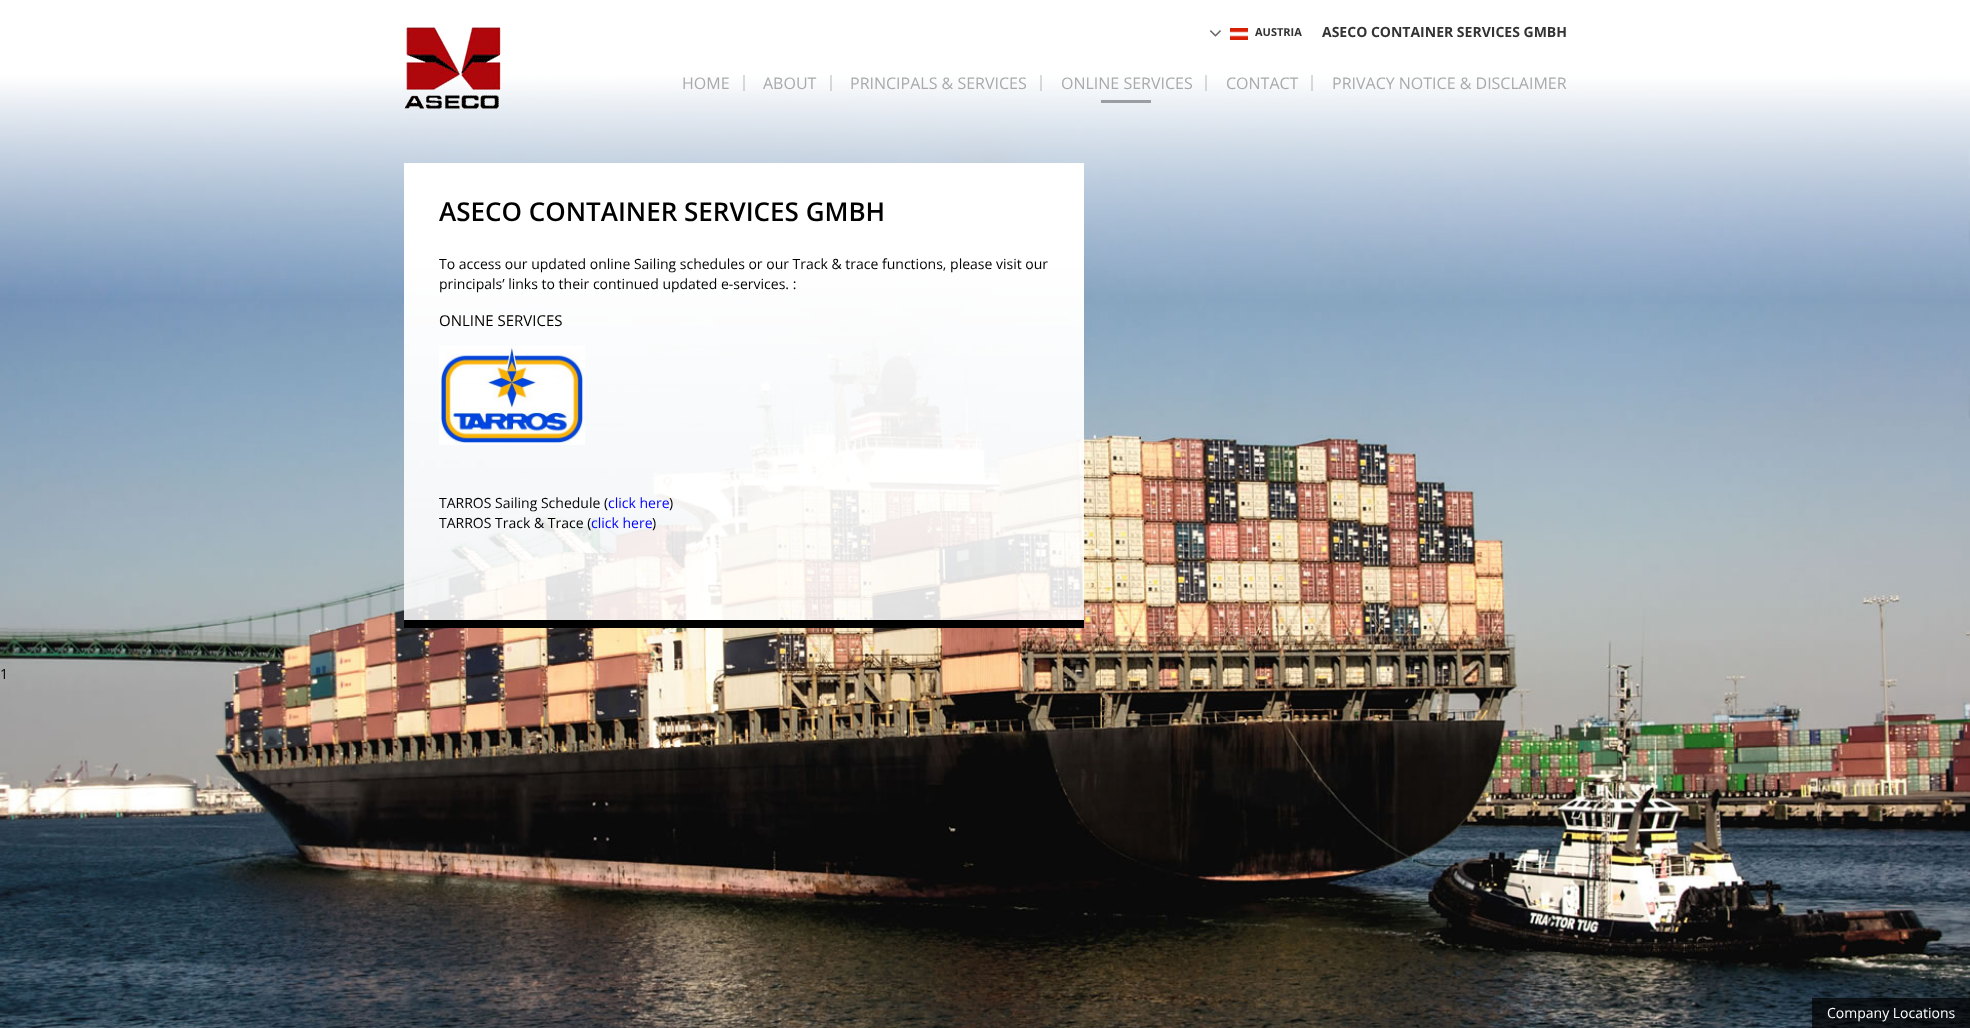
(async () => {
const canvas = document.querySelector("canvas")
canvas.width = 1970
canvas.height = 1028
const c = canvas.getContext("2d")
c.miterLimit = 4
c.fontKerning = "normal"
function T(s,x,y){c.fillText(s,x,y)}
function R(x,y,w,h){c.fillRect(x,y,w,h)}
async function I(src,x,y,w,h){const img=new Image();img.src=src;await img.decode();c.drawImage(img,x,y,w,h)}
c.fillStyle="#fff"
R(0,0,1970,1028)
await I("1.png",0,0,1970,1028)
await I("2.png",404,27,97,82)
await I("3.png",1209,30,12,7)
await I("4.png",1230,28,18,12)
c.font="bold 11px Open Sans"
c.fillStyle="#333"
T("AUSTRIA",1255,36)
c.font="bold 14px Open Sans"
T("ASECO CONTAINER SERVICES GMBH",1322,37)
c.fillStyle="#8888884d"
R(743,75,2,16)
c.font="16px Open Sans"
c.fillStyle="#a9aaab"
T("HOME",682,89)
c.fillStyle="#8888884d"
R(830,75,2,16)
c.fillStyle="#a9aaab"
T("ABOUT",763,89)
c.fillStyle="#8888884d"
R(1040,75,2,16)
c.fillStyle="#a9aaab"
T("PRINCIPALS & SERVICES",850,89)
c.fillStyle="#9b9da0"
R(1101,100,50,3)
c.fillStyle="#8888884d"
R(1205,75,2,16)
c.fillStyle="#a9aaab"
T("ONLINE SERVICES",1061,89)
c.fillStyle="#8888884d"
R(1311,75,2,16)
c.fillStyle="#a9aaab"
T("CONTACT",1226,89)
T("PRIVACY NOTICE & DISCLAIMER",1332,89)
c.fillStyle="#000"
R(404,620,680,8)
c.font="600 26px Open Sans"
T("ASECO CONTAINER SERVICES GMBH",439,221)
c.font="14px Open Sans"
T("To access our updated online Sailing schedules or our Track & trace functions, please visit our",439,269)
T("principals’ links to their continued updated e-services. :",439,289)
c.font="15px Open Sans"
T("ONLINE SERVICES",439,326)
await I("5.png",439,346,146,99)
c.font="14px Open Sans"
T("TARROS Sailing Schedule (",439,508)
c.fillStyle="#00f"
T("click here",608,508)
c.fillStyle="#000"
T(")",669,508)
T("TARROS Track & Trace (",439,528)
c.fillStyle="#00f"
T("click here",591,528)
c.fillStyle="#000"
T(")",652,528)
T("1",0,679)
c.fillStyle="#000000b3"
R(1812,998,158,30)
c.fillStyle="#fff"
T("Company Locations",1827,1018)
})()
